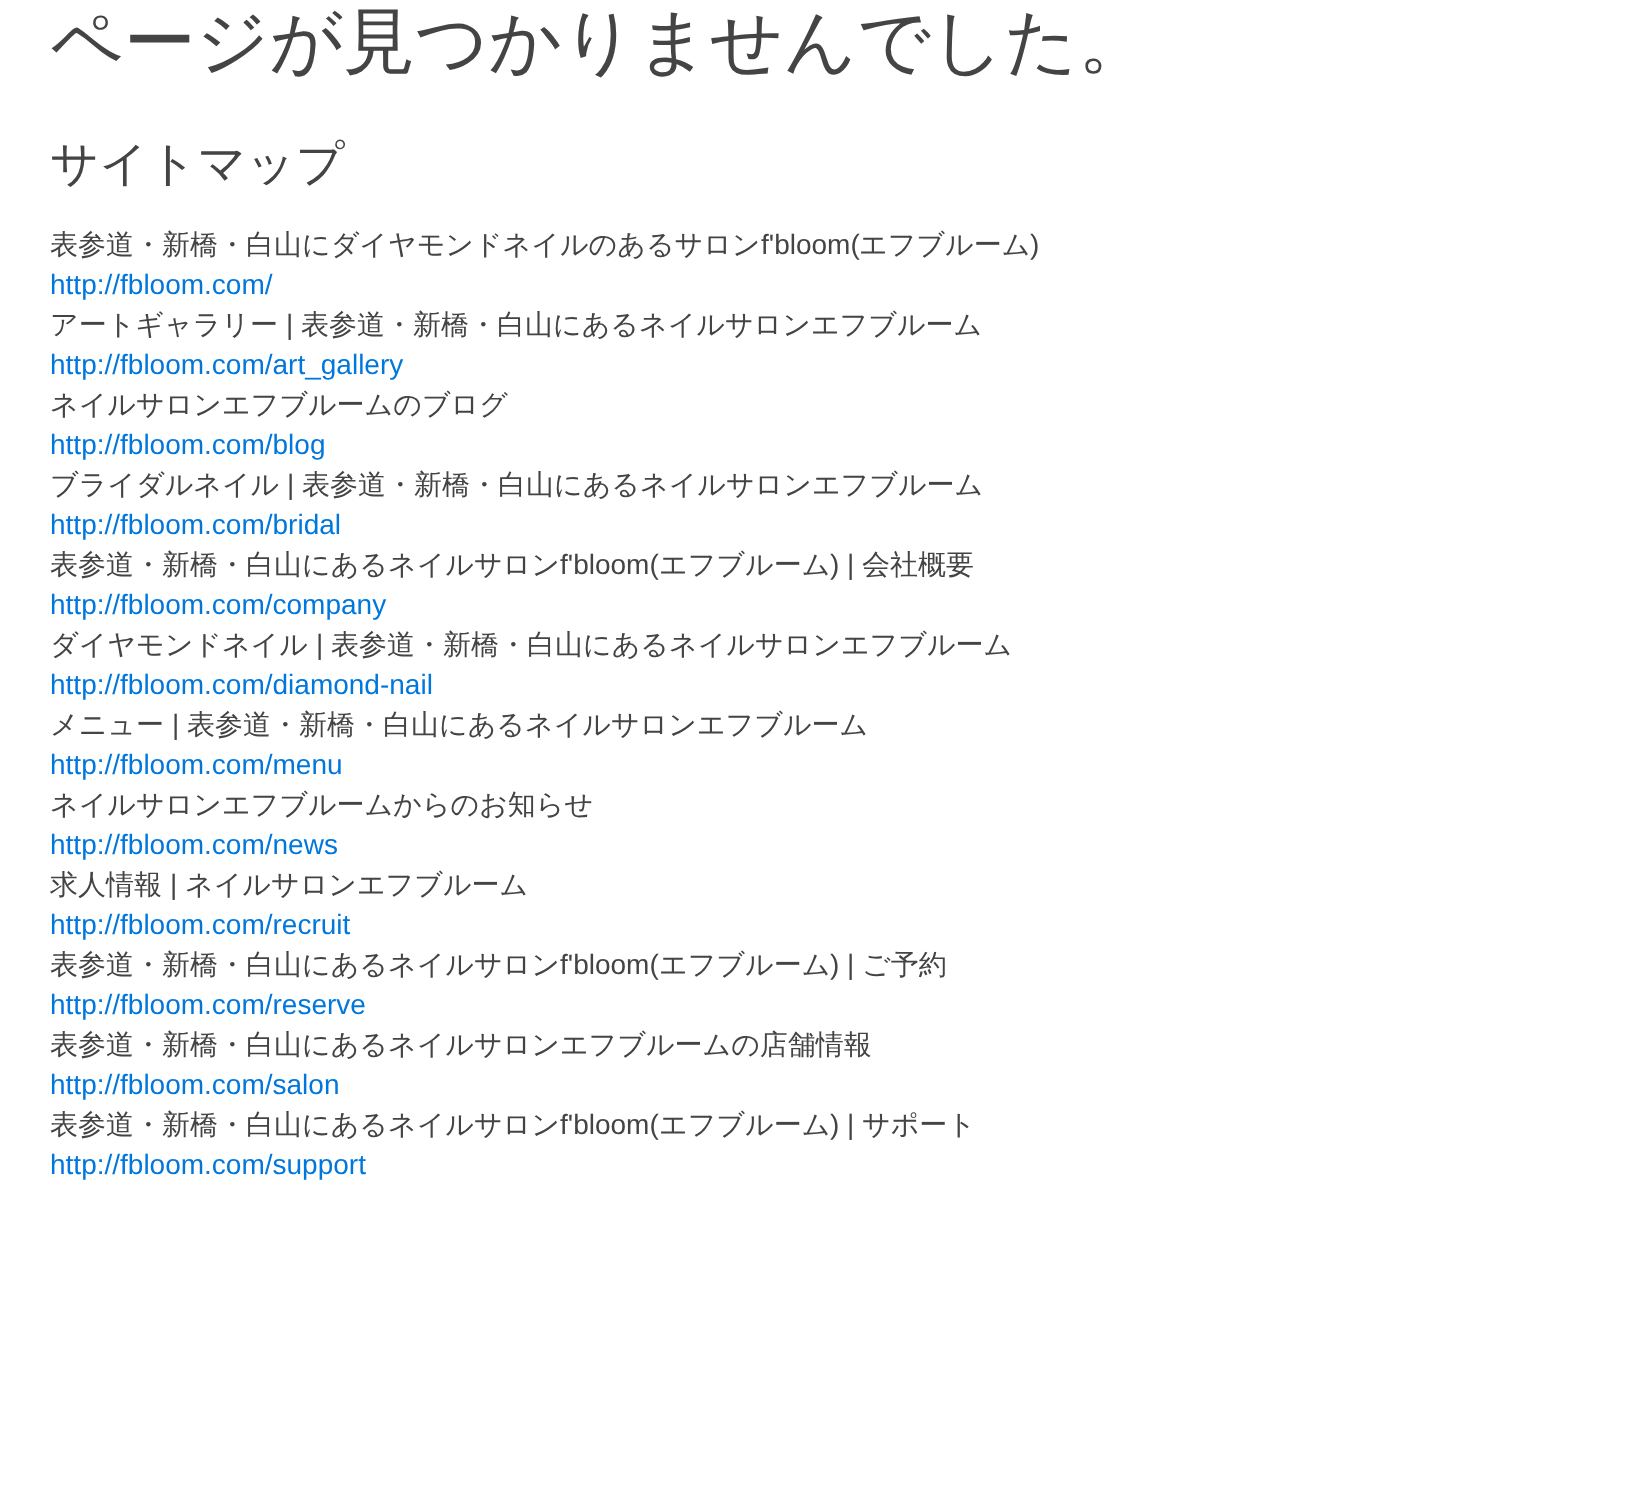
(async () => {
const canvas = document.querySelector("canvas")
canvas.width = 1643
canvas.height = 1503
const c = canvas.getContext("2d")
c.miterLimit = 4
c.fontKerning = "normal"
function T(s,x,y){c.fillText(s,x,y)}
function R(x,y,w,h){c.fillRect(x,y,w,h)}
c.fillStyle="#fff"
R(0,0,1643,1503)
c.font="500 72px WenQuanYi Zen Hei"
c.fillStyle="#444"
T("ページが見つかりませんでした。",50,66)
c.font="500 48px WenQuanYi Zen Hei"
T("サイトマップ",50,180)
c.font="500 28px WenQuanYi Zen Hei"
T("表参道・新橋・白山にダイヤモンドネイルのあるサロン",50,254)
c.font="28px Liberation Sans"
T("f'bloom(",761,254)
c.font="500 28px WenQuanYi Zen Hei"
T("エフブルーム",859,254)
c.font="28px Liberation Sans"
T(")",1030,254)
c.fillStyle="#07d"
T("http://fbloom.com/",50,294)
c.font="500 28px WenQuanYi Zen Hei"
c.fillStyle="#444"
T("アートギャラリー",50,334)
c.font="28px Liberation Sans"
T("|",286,334)
c.font="500 28px WenQuanYi Zen Hei"
T("表参道・新橋・白山にあるネイルサロンエフブルーム",301,334)
c.font="28px Liberation Sans"
c.fillStyle="#07d"
T("http://fbloom.com/art_gallery",50,374)
c.font="500 28px WenQuanYi Zen Hei"
c.fillStyle="#444"
T("ネイルサロンエフブルームのブログ",50,414)
c.font="28px Liberation Sans"
c.fillStyle="#07d"
T("http://fbloom.com/blog",50,454)
c.font="500 28px WenQuanYi Zen Hei"
c.fillStyle="#444"
T("ブライダルネイル",50,494)
c.font="28px Liberation Sans"
T("|",287,494)
c.font="500 28px WenQuanYi Zen Hei"
T("表参道・新橋・白山にあるネイルサロンエフブルーム",302,494)
c.font="28px Liberation Sans"
c.fillStyle="#07d"
T("http://fbloom.com/bridal",50,534)
c.font="500 28px WenQuanYi Zen Hei"
c.fillStyle="#444"
T("表参道・新橋・白山にあるネイルサロン",50,574)
c.font="28px Liberation Sans"
T("f'bloom(",560,574)
c.font="500 28px WenQuanYi Zen Hei"
T("エフブルーム",659,574)
c.font="28px Liberation Sans"
T(") |",830,574)
c.font="500 28px WenQuanYi Zen Hei"
T("会社概要",862,574)
c.font="28px Liberation Sans"
c.fillStyle="#07d"
T("http://fbloom.com/company",50,614)
c.font="500 28px WenQuanYi Zen Hei"
c.fillStyle="#444"
T("ダイヤモンドネイル",50,654)
c.font="28px Liberation Sans"
T("|",316,654)
c.font="500 28px WenQuanYi Zen Hei"
T("表参道・新橋・白山にあるネイルサロンエフブルーム",331,654)
c.font="28px Liberation Sans"
c.fillStyle="#07d"
T("http://fbloom.com/diamond-nail",50,694)
c.font="500 28px WenQuanYi Zen Hei"
c.fillStyle="#444"
T("メニュー",50,734)
c.font="28px Liberation Sans"
T("|",172,734)
c.font="500 28px WenQuanYi Zen Hei"
T("表参道・新橋・白山にあるネイルサロンエフブルーム",187,734)
c.font="28px Liberation Sans"
c.fillStyle="#07d"
T("http://fbloom.com/menu",50,774)
c.font="500 28px WenQuanYi Zen Hei"
c.fillStyle="#444"
T("ネイルサロンエフブルームからのお知らせ",50,814)
c.font="28px Liberation Sans"
c.fillStyle="#07d"
T("http://fbloom.com/news",50,854)
c.font="500 28px WenQuanYi Zen Hei"
c.fillStyle="#444"
T("求人情報",50,894)
c.font="28px Liberation Sans"
T("|",170,894)
c.font="500 28px WenQuanYi Zen Hei"
T("ネイルサロンエフブルーム",185,894)
c.font="28px Liberation Sans"
c.fillStyle="#07d"
T("http://fbloom.com/recruit",50,934)
c.font="500 28px WenQuanYi Zen Hei"
c.fillStyle="#444"
T("表参道・新橋・白山にあるネイルサロン",50,974)
c.font="28px Liberation Sans"
T("f'bloom(",560,974)
c.font="500 28px WenQuanYi Zen Hei"
T("エフブルーム",659,974)
c.font="28px Liberation Sans"
T(") |",830,974)
c.font="500 28px WenQuanYi Zen Hei"
T("ご予約",862,974)
c.font="28px Liberation Sans"
c.fillStyle="#07d"
T("http://fbloom.com/reserve",50,1014)
c.font="500 28px WenQuanYi Zen Hei"
c.fillStyle="#444"
T("表参道・新橋・白山にあるネイルサロンエフブルームの店舗情報",50,1054)
c.font="28px Liberation Sans"
c.fillStyle="#07d"
T("http://fbloom.com/salon",50,1094)
c.font="500 28px WenQuanYi Zen Hei"
c.fillStyle="#444"
T("表参道・新橋・白山にあるネイルサロン",50,1134)
c.font="28px Liberation Sans"
T("f'bloom(",560,1134)
c.font="500 28px WenQuanYi Zen Hei"
T("エフブルーム",659,1134)
c.font="28px Liberation Sans"
T(") |",830,1134)
c.font="500 28px WenQuanYi Zen Hei"
T("サポート",862,1134)
c.font="28px Liberation Sans"
c.fillStyle="#07d"
T("http://fbloom.com/support",50,1174)
})()
